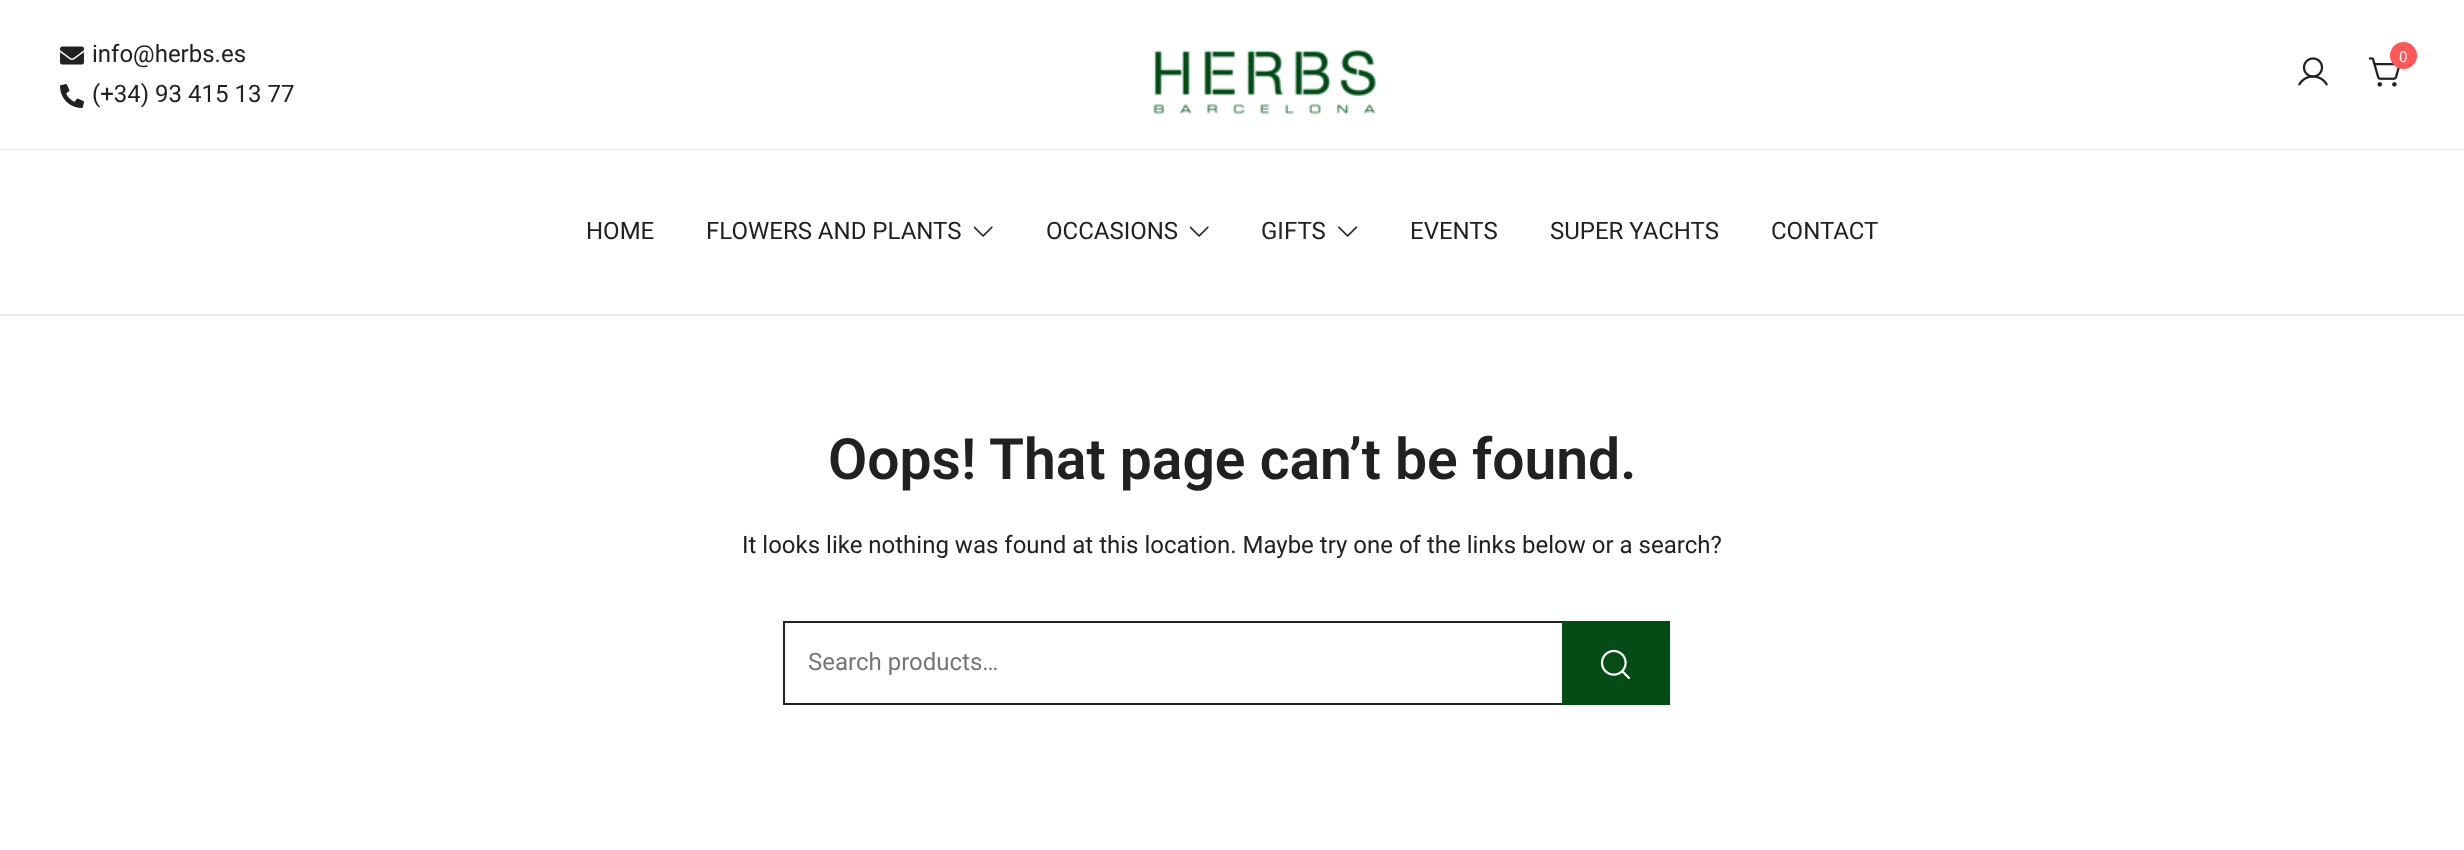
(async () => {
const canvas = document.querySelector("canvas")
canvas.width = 2464
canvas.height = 850
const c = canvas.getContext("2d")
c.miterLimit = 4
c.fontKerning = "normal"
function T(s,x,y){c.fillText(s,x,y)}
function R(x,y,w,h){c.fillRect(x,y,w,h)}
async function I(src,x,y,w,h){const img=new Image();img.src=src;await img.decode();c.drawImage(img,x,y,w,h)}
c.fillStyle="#fff"
R(0,0,2464,850)
c.fillStyle="#eaeaea"
R(0,149,2464,1)
await I("1.png",60,46,24,19)
c.font="24px Roboto"
c.fillStyle="#212121"
T("info@herbs.es",92,62)
await I("2.png",60,84,24,24)
T("(+34) 93 415 13 77",92,102)
await I("3.png",1153,50,224,65)
await I("4.png",2298,57,30,29)
await I("5.png",2369,57,31,30)
c.fillStyle="#ff5858"
c.beginPath()
c.arc(2403.5,55.5,12.5,0,7)
c.fill()
c.strokeStyle="#ff5858"
c.lineWidth=2
c.stroke()
c.font="15px Roboto"
c.fillStyle="#fff"
T("0",2399,62)
c.fillStyle="#eaeaea"
R(0,314,2464,2)
c.font="24px Roboto"
c.fillStyle="#212121"
T("HOME",586,239)
T("FLOWERS AND PLANTS",706,239)
await I("6.png",974,226,19,11)
T("OCCASIONS",1046,239)
await I("6.png",1190,226,19,11)
T("GIFTS",1261,239)
await I("7.png",1338,226,20,11)
T("EVENTS",1410,239)
T("SUPER YACHTS",1550,239)
T("CONTACT",1771,239)
c.font="600 57px Roboto"
T("Oops! That page can’t be found.",828,479)
c.font="24px Roboto"
T("It looks like nothing was found at this location. Maybe try one of the links below or a search?",742,553)
c.strokeStyle="#212121"
c.strokeRect(784,622,784,82)
c.fillStyle="#757575"
T("Search products…",808,670)
c.fillStyle="#044c15"
R(1562,621,108,84)
await I("8.png",1600,649,31,31)
})()
